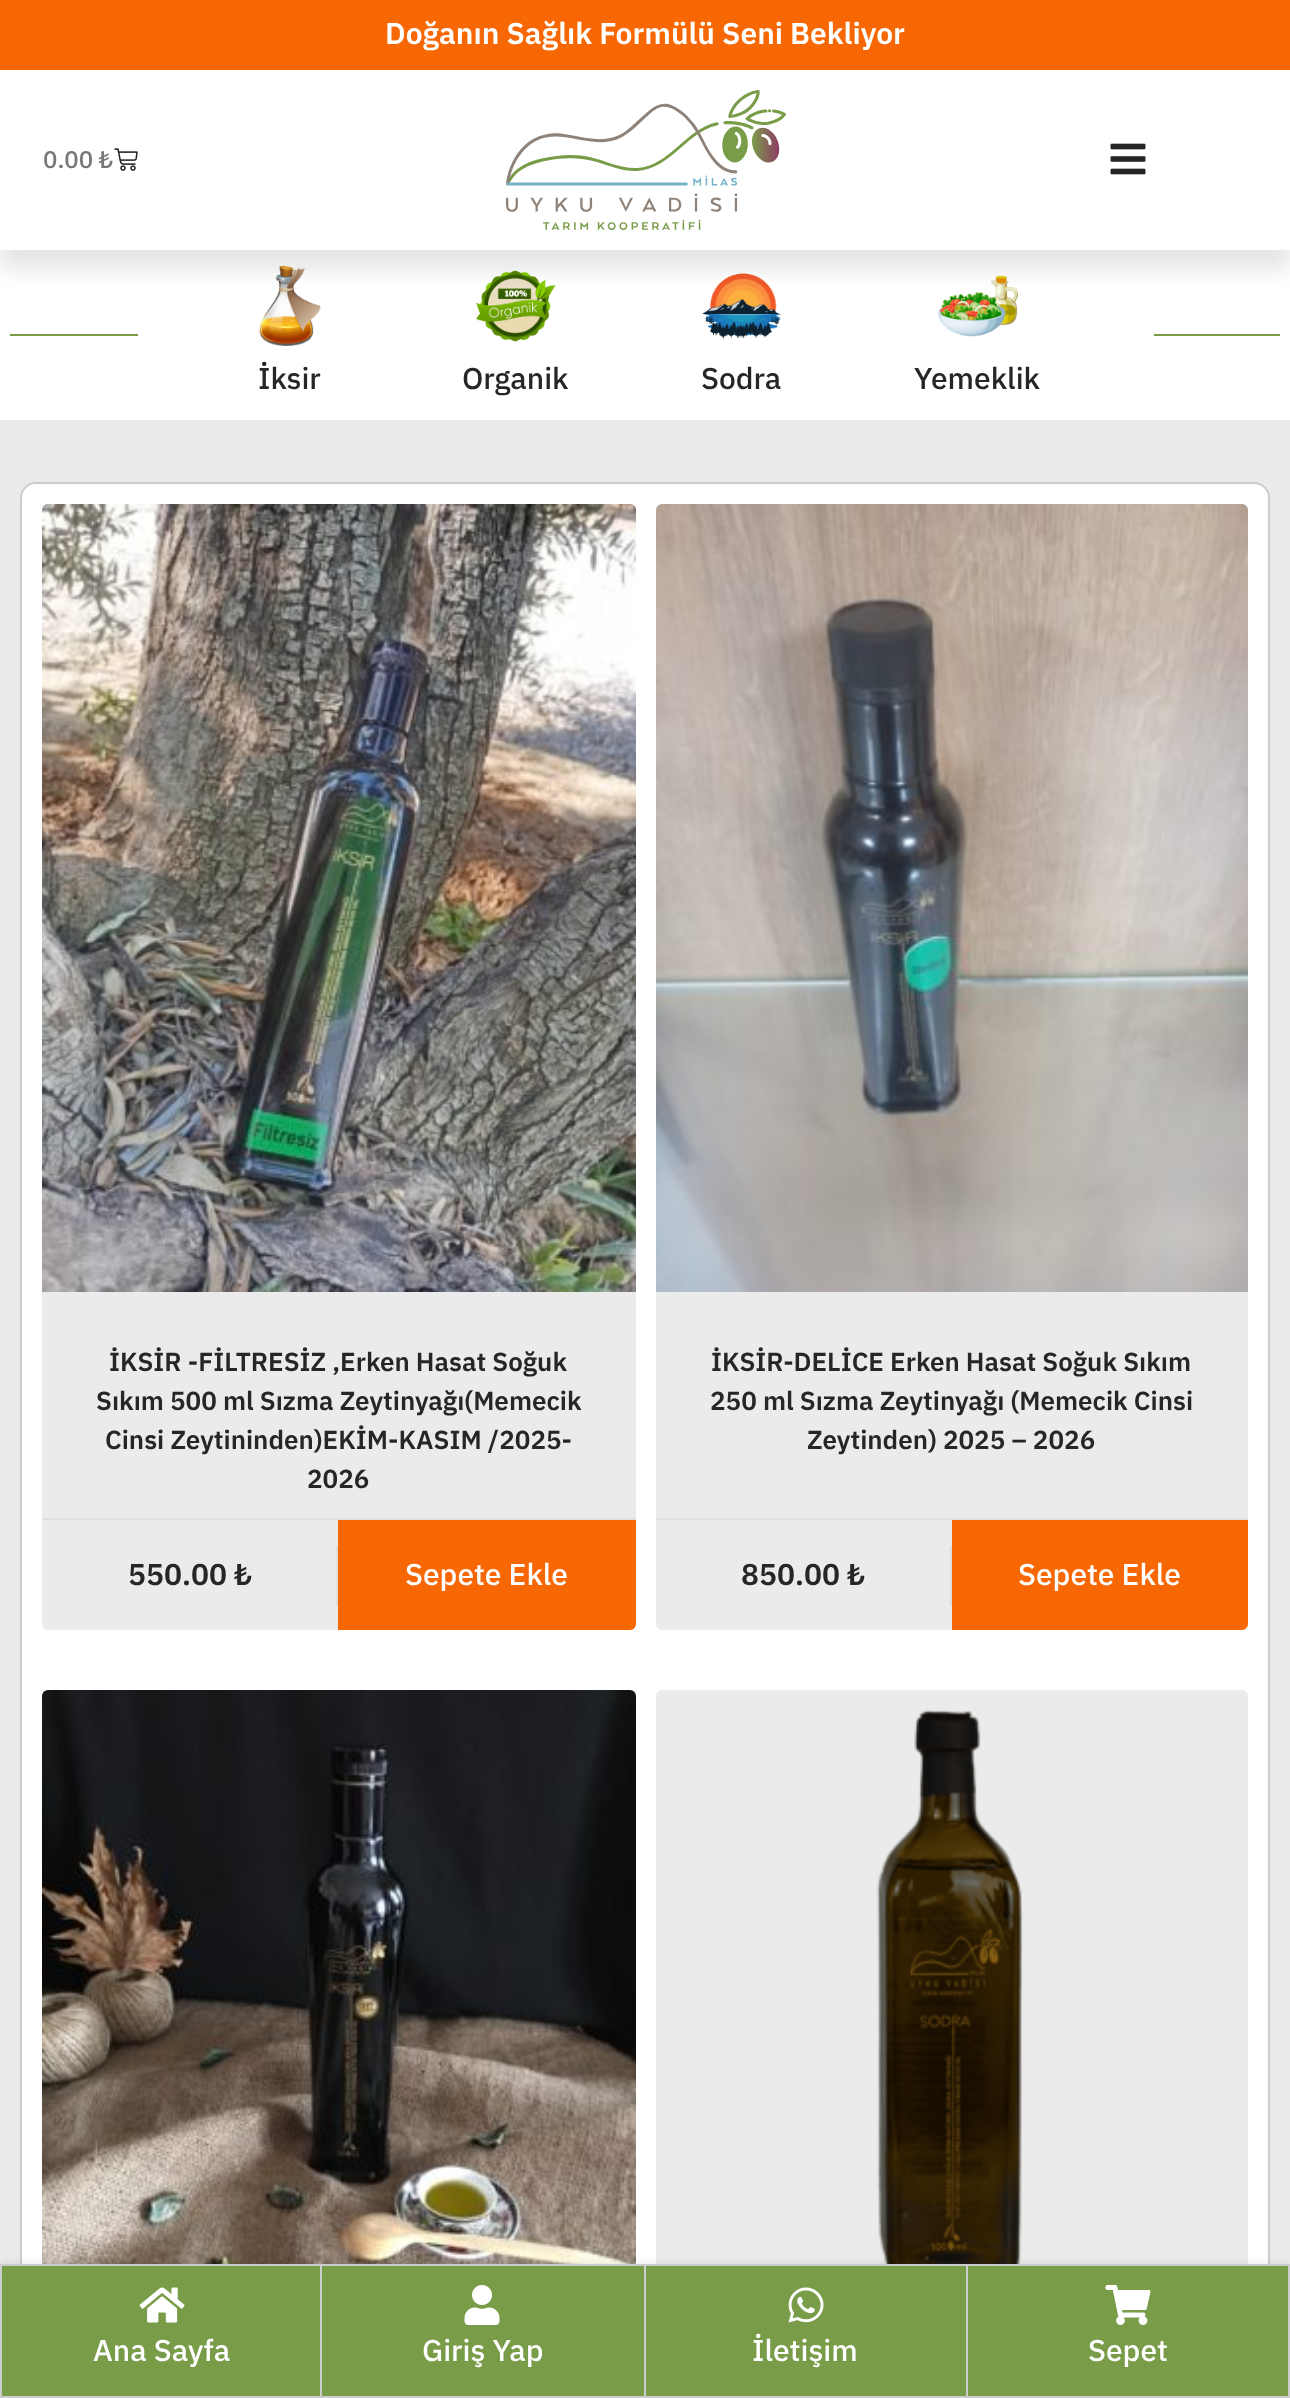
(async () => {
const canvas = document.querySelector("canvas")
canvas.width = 1290
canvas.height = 2398
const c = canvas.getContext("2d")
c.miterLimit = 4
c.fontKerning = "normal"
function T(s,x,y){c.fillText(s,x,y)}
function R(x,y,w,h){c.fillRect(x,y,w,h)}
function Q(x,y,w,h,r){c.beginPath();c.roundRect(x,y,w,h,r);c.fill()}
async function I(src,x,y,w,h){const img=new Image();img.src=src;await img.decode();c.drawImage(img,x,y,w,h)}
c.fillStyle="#ebebeb"
R(0,0,1290,2398)
c.fillStyle="#f76804"
R(0,0,1290,70)
c.font="600 30px IBM Plex Sans"
c.fillStyle="#fff"
T("Doğanın Sağlık Formülü Seni Bekliyor",385,44)
R(0,250,1290,170)
await I("4.png",259,266,62,80)
await I("5.png",476,270,80,72)
await I("6.png",702,273,80,66)
await I("7.png",938,275,80,62)
c.fillStyle="#0000001a"
c.filter="blur(10px)"
c.beginPath()
c.rect(0,90,1290,180)
c.fill()
c.filter="none"
c.fillStyle="#fff"
R(0,70,1290,180)
c.font="500 24px IBM Plex Sans"
c.fillStyle="#777"
T("0.00 ₺",43,168)
await I("1.png",114,148,24,23)
await I("2.png",506,90,280,140)
await I("3.png",1110,143,36,32)
c.fillStyle="#799c49"
R(10,334,128,2)
R(1154,334,126,2)
c.font="500 30px IBM Plex Sans"
c.fillStyle="#262626"
T("İksir",258,389)
T("Organik",462,389)
T("Sodra",701,389)
T("Yemeklik",914,389)
c.fillStyle="#fff"
c.beginPath()
c.roundRect(21,483,1248,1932,15)
c.fill()
c.strokeStyle="#ccc"
c.lineWidth=2
c.stroke()
c.fillStyle="#ebebeb"
Q(42,504,594,1126,6)
await I("8.png",42,504,594,788)
c.font="600 26px IBM Plex Sans"
c.fillStyle="#262626"
T("İKSİR -FİLTRESİZ ,Erken Hasat Soğuk",109,1371)
T("Sıkım 500 ml Sızma Zeytinyağı(Memecik",96,1410)
T("Cinsi Zeytininden)EKİM-KASIM /2025-",105,1449)
T("2026",307,1488)
c.fillStyle="#dfdfdf"
R(42,1518,594,2)
c.font="600 30px IBM Plex Sans"
c.fillStyle="#262626"
T("550.00 ₺",128,1585)
c.fillStyle="#dfdfdf"
R(336,1546,2,60)
c.fillStyle="#f76804"
c.beginPath()
c.roundRect(338,1520,298,110,[0,0,6,0])
c.fill()
c.font="500 30px IBM Plex Sans"
c.fillStyle="#fff"
T("Sepete Ekle",405,1585)
c.fillStyle="#ebebeb"
Q(656,504,592,1126,6)
await I("9.png",656,504,592,788)
c.font="600 26px IBM Plex Sans"
c.fillStyle="#262626"
T("İKSİR-DELİCE Erken Hasat Soğuk Sıkım",711,1371)
T("250 ml Sızma Zeytinyağı (Memecik Cinsi",710,1410)
T("Zeytinden) 2025 – 2026",807,1449)
c.fillStyle="#dfdfdf"
R(656,1518,592,2)
c.font="600 30px IBM Plex Sans"
c.fillStyle="#262626"
T("850.00 ₺",741,1585)
c.fillStyle="#dfdfdf"
R(950,1546,2,60)
c.fillStyle="#f76804"
c.beginPath()
c.roundRect(952,1520,296,110,[0,0,6,0])
c.fill()
c.font="500 30px IBM Plex Sans"
c.fillStyle="#fff"
T("Sepete Ekle",1018,1585)
await I("10.png",42,1690,594,574)
c.fillStyle="#ebebeb"
Q(656,1690,592,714,6)
await I("11.png",876,1709,147,555)
c.fillStyle="#0000001a"
c.filter="blur(5px)"
c.beginPath()
c.rect(0,2264,1290,134)
c.fill()
c.filter="none"
c.fillStyle="#799c49"
R(2,2266,1286,130)
c.strokeRect(1,2265,320,132)
await I("12.png",139,2287,46,36)
c.fillStyle="#fff"
T("Ana Sayfa",93,2361)
c.fillStyle="#ccc"
R(322,2264,968,2)
R(644,2264,2,134)
R(322,2396,324,2)
await I("13.png",464,2285,36,40)
c.fillStyle="#fff"
T("Giriş Yap",422,2361)
c.fillStyle="#ccc"
R(966,2264,2,134)
R(646,2396,322,2)
await I("14.png",788,2287,36,36)
c.fillStyle="#fff"
T("İletişim",752,2361)
c.fillStyle="#ccc"
R(1288,2264,2,134)
R(968,2396,322,2)
await I("15.png",1105,2285,46,40)
c.fillStyle="#fff"
T("Sepet",1088,2361)
})()
